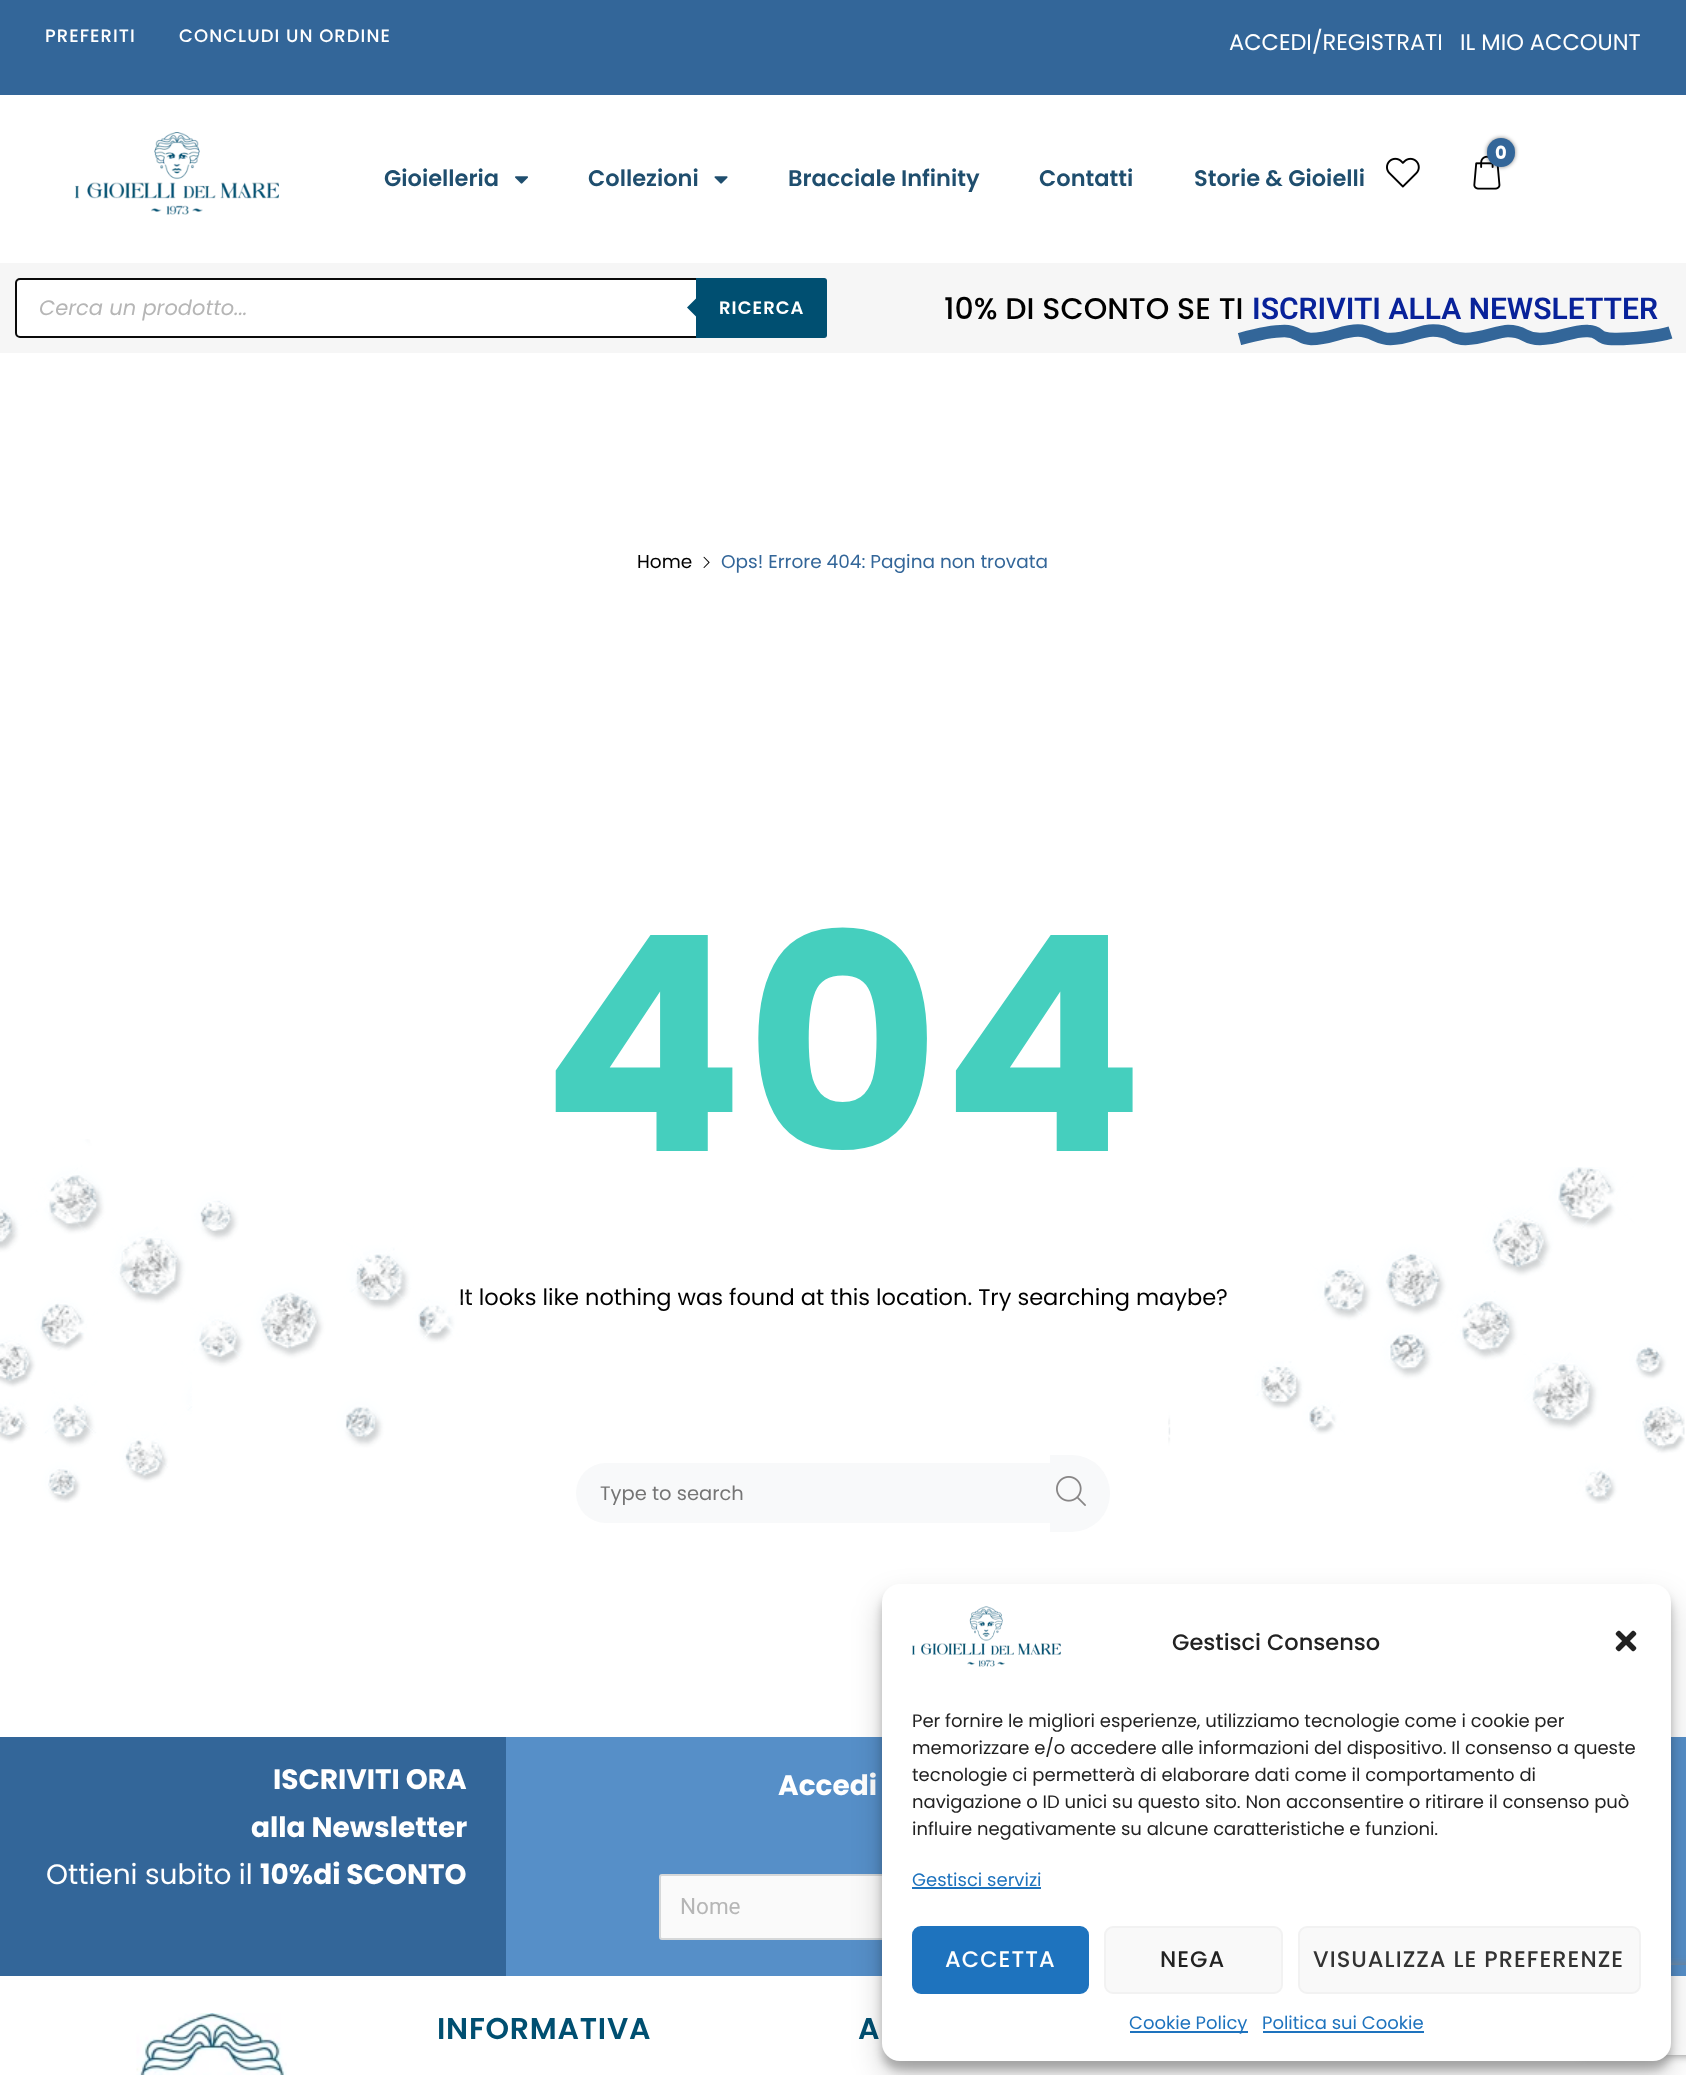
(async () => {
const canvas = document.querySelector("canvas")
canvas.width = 1686
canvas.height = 2075
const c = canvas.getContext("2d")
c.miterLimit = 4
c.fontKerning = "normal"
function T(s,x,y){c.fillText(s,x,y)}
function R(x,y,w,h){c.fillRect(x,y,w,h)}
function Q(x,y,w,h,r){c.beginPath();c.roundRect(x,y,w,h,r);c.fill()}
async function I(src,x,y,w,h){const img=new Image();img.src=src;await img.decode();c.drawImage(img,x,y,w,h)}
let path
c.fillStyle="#fff"
R(0,0,1686,2075)
c.fillStyle="#369"
R(0,0,1686,95)
c.letterSpacing="1.05px"
c.font="500 18px Poppins"
c.fillStyle="#fff"
T("PREFERITI",45,42)
T("CONCLUDI UN ORDINE",179,42)
c.letterSpacing="0px"
c.font="22.5px Poppins"
T("ACCEDI/REGISTRATI",1229,50)
T("IL MIO ACCOUNT",1460,50)
await I("1.png",75,132,204,83)
await I("2.png",1473,155,28,35)
c.fillStyle="#00000080"
c.filter="blur(2px)"
c.beginPath()
c.roundRect(1487,138,28,29,14)
c.fill()
c.filter="none"
c.fillStyle="#369"
Q(1487,138,28,29,14)
c.font="bold 18px Poppins"
c.fillStyle="#fff"
T("0",1495,159)
c.font="600 22.5px Poppins"
c.fillStyle="#1f4e6e"
T("Gioielleria",384,186)
await I("3.png",515,176,13,8)
T("Collezioni",588,186)
await I("4.png",714,176,14,8)
T("Bracciale Infinity",788,186)
T("Contatti",1039,186)
T("Storie & Gioielli",1194,186)
await I("5.png",1386,157,34,31)
c.fillStyle="#f6f6f6"
R(0,263,1686,90)
c.fillStyle="#fff"
c.beginPath()
c.roundRect(16,279,810,58,4)
c.fill()
c.strokeStyle="#0a0a0a"
c.lineWidth=2
c.stroke()
c.font="italic 21px Poppins"
c.fillStyle="#b6b6b6"
T("Cerca un prodotto...",39,315)
c.fillStyle="#004f71"
c.beginPath()
c.roundRect(696,278,131,60,[0,3,3,0])
c.fill()
path = new Path2D("M699 295.5v24l-12-12z")
c.fill(path)
c.letterSpacing="1.05px"
c.font="600 18px Poppins"
c.fillStyle="#fff"
T("RICERCA",719,314)
c.letterSpacing="0px"
c.font="500 30px Poppins"
c.fillStyle="#000"
T("10% DI SCONTO SE TI",944,319)
c.font="600 30px Roboto"
c.fillStyle="#08229a"
T("ISCRIVITI ALLA NEWSLETTER",1252,319)
path = new Path2D("M1239.5 339c15-4 29.5-8 45-8c13.5 0 15 8 26.5 8c19.5 0 31-8.5 47-8.5c14.5 0 18.5 8.5 32.5 8.5c18.5 0 27.5-8.5 42.5-8.5c19.5 0 16.5 8.5 32.5 8.5c16 0 32.5-8 42.5-8c18 0 15 8 32 8c20 0 32-9 48-8c15 .5 6 8.5 29 8c15 0 41-2.5 53.5-6.5")
c.strokeStyle="#369"
c.lineWidth=12.4
c.stroke(path)
c.font="18.5px Poppins"
c.fillStyle="#000"
T("Home",637,568)
await I("6.png",703,556,7,12)
c.fillStyle="#369"
T("Ops! Errore 404: Pagina non trovata",721,568)
c.letterSpacing="0.75px"
c.font="bold 300px Poppins"
c.fillStyle="#45cfbe"
T("404",541,1151)
c.letterSpacing="0px"
c.font="22.5px Poppins"
c.fillStyle="#000"
T("It looks like nothing was found at this location. Try searching maybe?",459,1305)
await I("7.png",0,1139,471,364)
c.fillStyle="#f8f9fa"
c.beginPath()
c.roundRect(576,1463,480,60,[30,0,0,30])
c.fill()
c.font="19.5px Poppins"
c.fillStyle="#757575"
T("Type to search",600,1500)
c.fillStyle="#f8f9fa"
c.beginPath()
c.roundRect(1050,1455,60,77,[0,38,38,0])
c.fill()
await I("8.png",1056,1476,30,30)
await I("9.png",1168,1167,517,337)
c.fillStyle="#369"
R(0,1737,506,239)
c.font="bold 28px Poppins"
c.fillStyle="#fff"
T("ISCRIVITI ORA",273,1789)
T("alla Newsletter",251,1837)
c.font="28px Poppins"
T("Ottieni subito il",46,1884)
c.font="bold 28px Poppins"
T("10%di SCONTO",260,1884)
c.fillStyle="#568fc8"
R(506,1737,1180,239)
c.fillStyle="#fff"
T("Accedi",778,1795)
c.fillStyle="#fafafa"
c.beginPath()
c.roundRect(660,1875,301,64,2)
c.fill()
c.strokeStyle="#d6d8d9"
c.lineWidth=2
c.stroke()
c.font="22.5px Roboto"
c.fillStyle="#b6b6b6"
T("Nome",680,1914)
await I("10.png",136,2013,151,62)
c.letterSpacing="0.75px"
c.font="600 30px Poppins"
c.fillStyle="#004f71"
T("INFORMATIVA",437,2039)
T("A",858,2039)
c.fillStyle="#0000003b"
c.filter="blur(4.5px)"
c.beginPath()
c.roundRect(882,1593,789,477,18)
c.fill()
c.filter="none"
c.fillStyle="#00000030"
c.filter="blur(15px)"
c.beginPath()
c.roundRect(882,1599,789,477,18)
c.fill()
c.filter="none"
c.save()
path = new Path2D("M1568 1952h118v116h-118zm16 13h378c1.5 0 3 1.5 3 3v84c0 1.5-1.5 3-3 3h-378c-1.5 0-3-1.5-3-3v-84c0-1.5 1.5-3 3-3z")
c.clip(path,"evenodd")
c.fillStyle="#808080"
c.filter="blur(4px)"
c.beginPath()
c.roundRect(1581,1965,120,90,3)
c.fill()
c.filter="none"
c.restore()
c.fillStyle="#fff"
Q(882,1584,789,477,18)
await I("11.png",912,1606,149,61)
c.letterSpacing="0px"
c.font="500 22.5px Poppins"
c.fillStyle="#222"
T("Gestisci Consenso",1172,1650)
await I("12.png",1615,1630,22,22)
c.font="18px Poppins"
T("Per fornire le migliori esperienze, utilizziamo tecnologie come i cookie per",912,1727)
T("memorizzare e/o accedere alle informazioni del dispositivo. Il consenso a queste",912,1754)
T("tecnologie ci permetterà di elaborare dati come il comportamento di",912,1781)
T("navigazione o ID unici su questo sito. Non acconsentire o ritirare il consenso può",912,1808)
T("influire negativamente su alcune caratteristiche e funzioni.",912,1835)
c.fillStyle="#1e73be"
T("Gestisci servizi",912,1886)
R(912,1887,129,2)
c.beginPath()
c.roundRect(913,1927,175,66,8)
c.fill()
c.strokeStyle="#1e73be"
c.stroke()
c.letterSpacing="1.05px"
c.font="500 22.5px Poppins"
c.fillStyle="#fff"
T("ACCETTA",945,1967)
c.fillStyle="#f9f9f9"
c.beginPath()
c.roundRect(1105,1927,177,66,8)
c.fill()
c.strokeStyle="#f2f2f2"
c.stroke()
c.fillStyle="#222"
T("NEGA",1160,1967)
c.fillStyle="#f9f9f9"
c.beginPath()
c.roundRect(1299,1927,341,66,8)
c.fill()
c.stroke()
c.fillStyle="#333"
T("VISUALIZZA LE PREFERENZE",1313,1967)
c.fillStyle="#1e73be"
R(1130,2031,118,2)
c.letterSpacing="0px"
c.font="18px Poppins"
T("Cookie Policy",1129,2029)
T("Politica sui Cookie",1262,2029)
R(1263,2031,161,2)
})()
